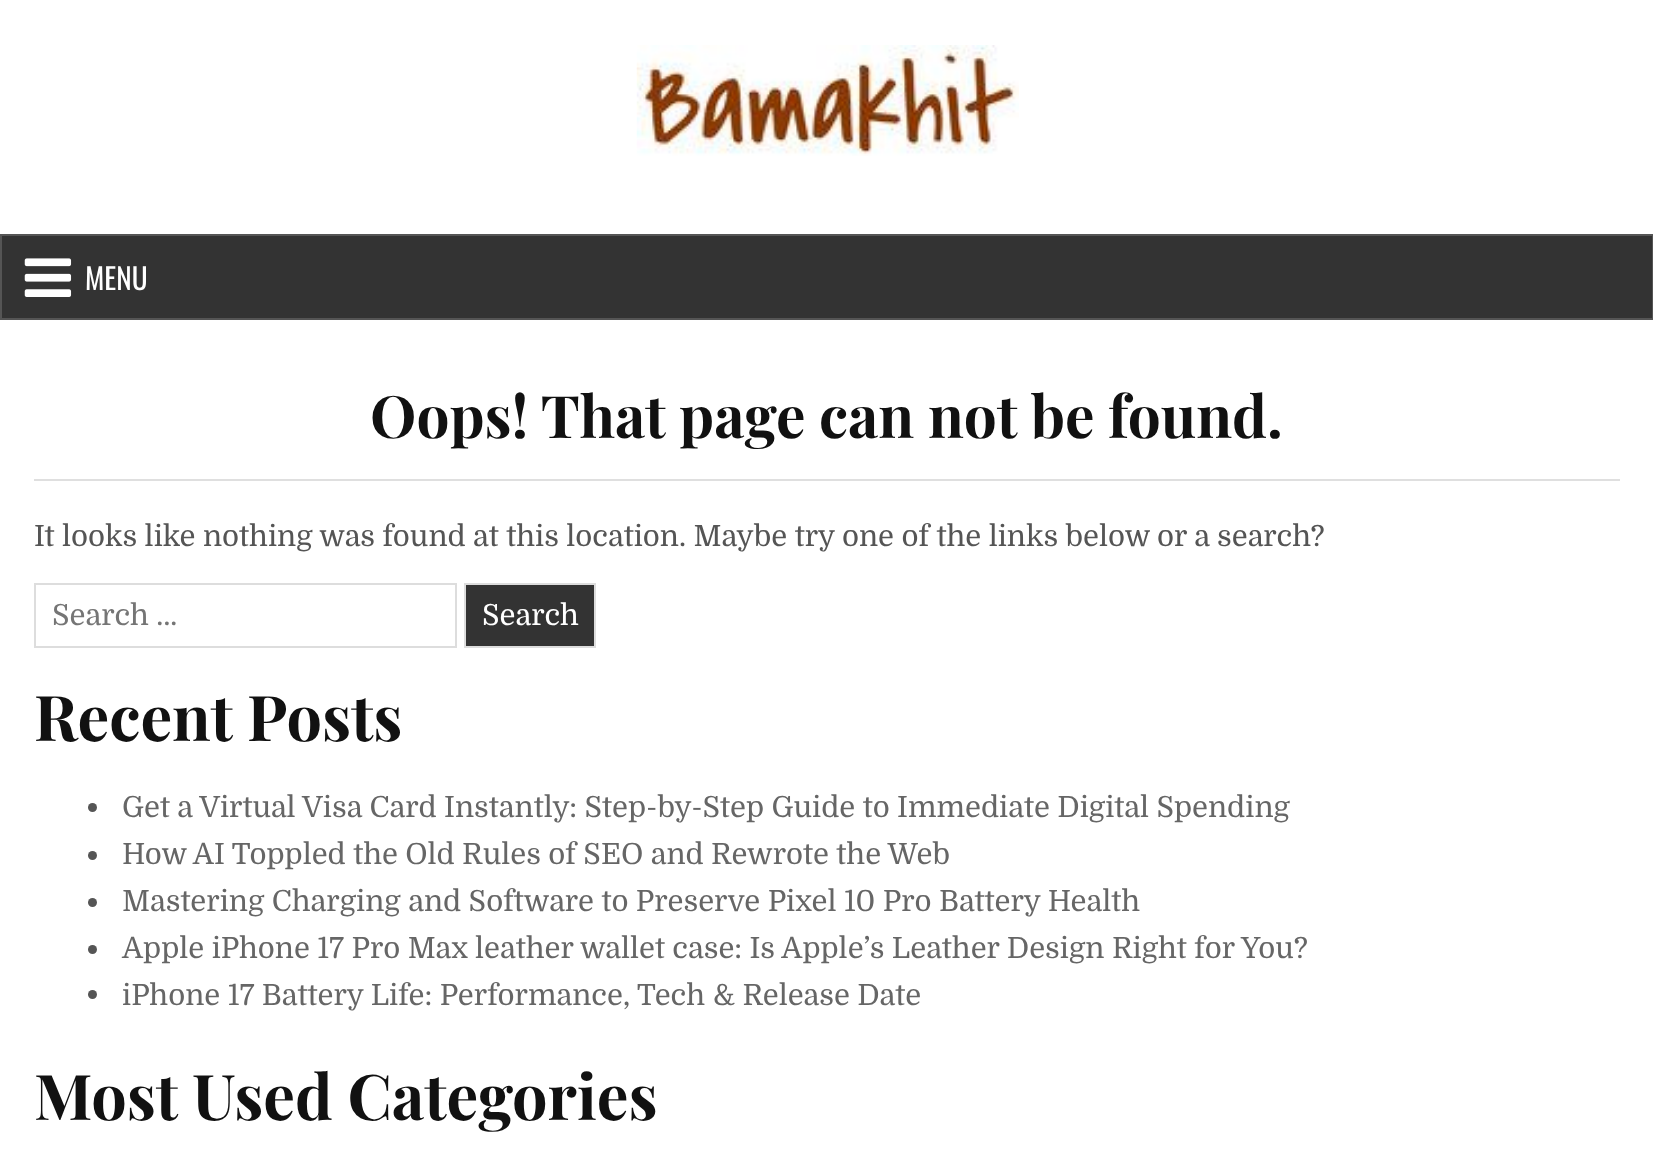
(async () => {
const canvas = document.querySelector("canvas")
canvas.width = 1653
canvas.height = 1167
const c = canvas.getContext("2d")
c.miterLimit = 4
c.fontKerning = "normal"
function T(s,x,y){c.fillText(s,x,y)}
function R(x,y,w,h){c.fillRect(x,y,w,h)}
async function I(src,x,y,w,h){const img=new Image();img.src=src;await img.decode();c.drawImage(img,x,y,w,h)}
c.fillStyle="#333"
R(0,0,1653,1167)
c.fillStyle="#fff"
R(0,0,1653,234)
await I("1.png",636,45,383,111)
c.strokeStyle="#555"
c.lineWidth=2
c.strokeRect(1,235,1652,84)
await I("2.png",24,258,48,39)
c.font="29.25px Oswald"
T("MENU",85,290)
R(0,320,1653,847)
c.fillStyle="#dfdfdf"
R(34,479,1586,2)
c.font="bold 58.5px Playfair Display"
c.fillStyle="#111"
T("Oops! That page can not be found.",370,438)
c.font="29.25px Domine"
c.fillStyle="#555"
T("It looks like nothing was found at this location. Maybe try one of the links below or a search?",34,546)
c.strokeStyle="#ddd"
c.strokeRect(35,584,421,63)
c.fillStyle="#757575"
T("Search …",52,625)
c.fillStyle="#333"
c.beginPath()
c.rect(465,584,130,63)
c.fill()
c.stroke()
c.fillStyle="#fff"
T("Search",482,625)
c.font="bold 63px Playfair Display"
c.fillStyle="#111"
T("Recent Posts",34,741)
c.fillStyle="#555"
c.beginPath()
c.arc(92.5,807.5,4.5,0,7)
c.fill()
c.font="29.25px Domine"
c.fillStyle="#666"
T("Get a Virtual Visa Card Instantly: Step-by-Step Guide to Immediate Digital Spending",122,817)
c.fillStyle="#555"
c.beginPath()
c.arc(92.5,855.5,4.5,0,7)
c.fill()
c.fillStyle="#666"
T("How AI Toppled the Old Rules of SEO and Rewrote the Web",122,864)
c.fillStyle="#555"
c.beginPath()
c.arc(92.5,902.5,4.5,0,7)
c.fill()
c.fillStyle="#666"
T("Mastering Charging and Software to Preserve Pixel 10 Pro Battery Health",122,911)
c.fillStyle="#555"
c.beginPath()
c.arc(92.5,949.5,4.5,0,7)
c.fill()
c.fillStyle="#666"
T("Apple iPhone 17 Pro Max leather wallet case: Is Apple’s Leather Design Right for You?",122,958)
c.fillStyle="#555"
c.beginPath()
c.arc(92.5,994.5,4.5,0,7)
c.fill()
c.fillStyle="#666"
T("iPhone 17 Battery Life: Performance, Tech & Release Date",122,1005)
c.font="bold 63px Playfair Display"
c.fillStyle="#111"
T("Most Used Categories",34,1120)
})()
